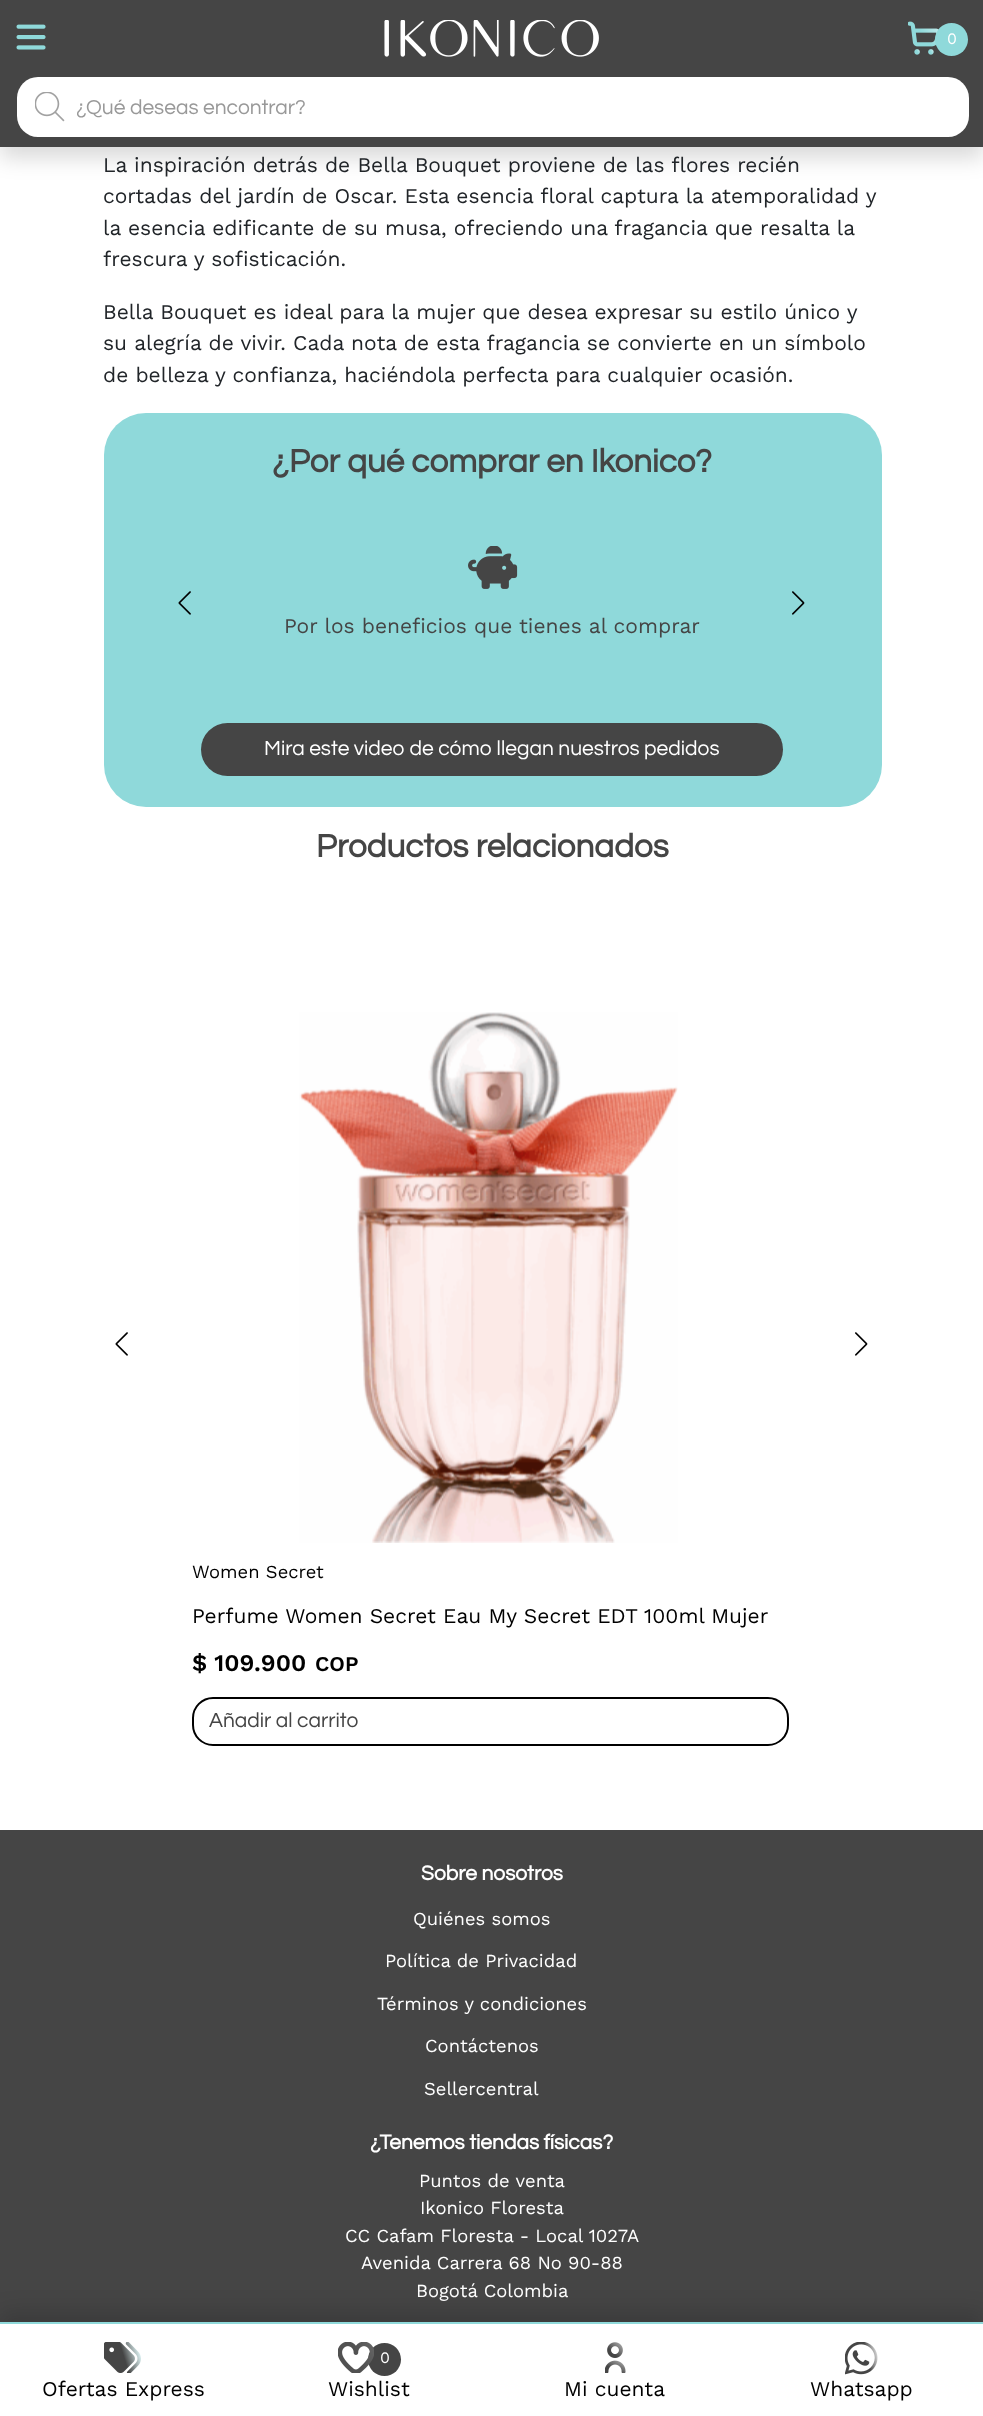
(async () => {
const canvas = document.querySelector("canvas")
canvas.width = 983
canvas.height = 2416
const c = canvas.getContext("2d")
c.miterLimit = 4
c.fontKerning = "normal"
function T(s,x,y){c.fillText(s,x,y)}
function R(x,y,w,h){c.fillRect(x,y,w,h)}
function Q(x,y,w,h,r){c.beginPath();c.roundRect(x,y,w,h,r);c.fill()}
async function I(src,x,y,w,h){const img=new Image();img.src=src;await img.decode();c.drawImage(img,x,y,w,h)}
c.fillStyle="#fff"
R(0,0,983,2416)
c.fillStyle="#00000026"
c.filter="blur(10.5px)"
c.beginPath()
c.rect(0,11,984,147)
c.fill()
c.filter="none"
c.fillStyle="#454545"
R(0,0,983,147)
await I("1.png",16,24,30,26)
await I("2.png",384,20,215,37)
await I("3.png",908,21,31,34)
c.fillStyle="#8fd9da"
c.beginPath()
c.arc(951.5,39.5,16.5,0,7)
c.fill()
c.font="16px Work Sans"
c.fillStyle="#fff"
T("0",947,44)
Q(17,77,952,60,21)
await I("4.png",35,92,30,30)
c.save()
c.beginPath()
c.rect(77,98,870,21)
c.clip()
c.font="21px Questrial"
c.fillStyle="#999"
T("¿Qué deseas encontrar?",76,114)
c.restore()
c.font="21px Work Sans"
c.fillStyle="#212529"
T("La inspiración detrás de Bella Bouquet proviene de las flores recién",103,172)
T("cortadas del jardín de Oscar. Esta esencia floral captura la atemporalidad y",103,203)
T("la esencia edificante de su musa, ofreciendo una fragancia que resalta la",103,235)
T("frescura y sofisticación.",103,266)
T("Bella Bouquet es ideal para la mujer que desea expresar su estilo único y",103,319)
T("su alegría de vivir. Cada nota de esta fragancia se convierte en un símbolo",103,350)
T("de belleza y confianza, haciéndola perfecta para cualquier ocasión.",103,382)
c.fillStyle="#8fd9da"
Q(104,413,778,394,42)
c.font="bold 33.25px Questrial"
c.fillStyle="#454545"
T("¿Por qué comprar en Ikonico?",272,472)
await I("5.png",178,591,13,24)
await I("6.png",792,591,13,24)
await I("7.png",468,546,50,43)
c.font="21px Work Sans"
T("Por los beneficios que tienes al comprar",284,633)
Q(201,723,582,53,26.5)
c.font="21px Questrial"
c.fillStyle="#fff"
T("Mira este video de cómo llegan nuestros pedidos",264,755)
c.font="bold 33.25px Questrial"
c.fillStyle="#454545"
T("Productos relacionados",316,857)
await I("8.png",115,1332,13,24)
await I("9.png",855,1332,13,24)
await I("10.png",299,1012,379,531)
c.font="18.4px Work Sans"
c.fillStyle="#000"
T("Women Secret",192,1578)
c.font="21px Work Sans"
T("Perfume Women Secret Eau My Secret EDT 100ml Mujer",192,1623)
c.font="600 24px Work Sans"
T("$ 109.900",192,1671)
c.font="600 21px Work Sans"
T("COP",315,1671)
c.beginPath()
c.roundRect(193,1698,595,47,20)
c.strokeStyle="#000"
c.lineWidth=2
c.stroke()
c.font="21px Questrial"
c.fillStyle="#454545"
T("Añadir al carrito",209,1727)
R(0,1830,983,492)
c.font="bold 21px Questrial"
c.fillStyle="#fff"
T("Sobre nosotros",421,1880)
c.font="18.4px Work Sans"
T("Quiénes somos",413,1925)
T("Política de Privacidad",385,1967)
T("Términos y condiciones",377,2010)
T("Contáctenos",425,2052)
T("Sellercentral",424,2095)
c.font="bold 21px Questrial"
T("¿Tenemos tiendas físicas?",370,2149)
c.font="18.4px Work Sans"
T("Puntos de venta",419,2187)
T("Ikonico Floresta",420,2214)
T("CC Cafam Floresta - Local 1027A",345,2242)
T("Avenida Carrera 68 No 90-88",361,2269)
T("Bogotá Colombia",416,2297)
c.fillStyle="#00000026"
c.filter="blur(10.5px)"
c.beginPath()
c.rect(0,2312,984,94)
c.fill()
c.filter="none"
c.fillStyle="#fff"
R(0,2324,983,92)
c.fillStyle="#8fd9da"
R(0,2322,983,2)
await I("11.png",104,2342,37,31)
c.font="21px Work Sans"
c.fillStyle="#000"
T("Ofertas Express",42,2396)
c.fillStyle="#454545"
c.beginPath()
c.arc(384.5,2359.5,16.5,0,7)
c.fill()
await I("12.png",338,2342,36,31)
c.font="16px Work Sans"
c.fillStyle="#fff"
T("0",380,2363)
c.font="21px Work Sans"
c.fillStyle="#000"
T("Wishlist",328,2396)
await I("13.png",605,2342,21,31)
T("Mi cuenta",564,2396)
await I("14.png",845,2342,33,33)
T("Whatsapp",810,2396)
})()
